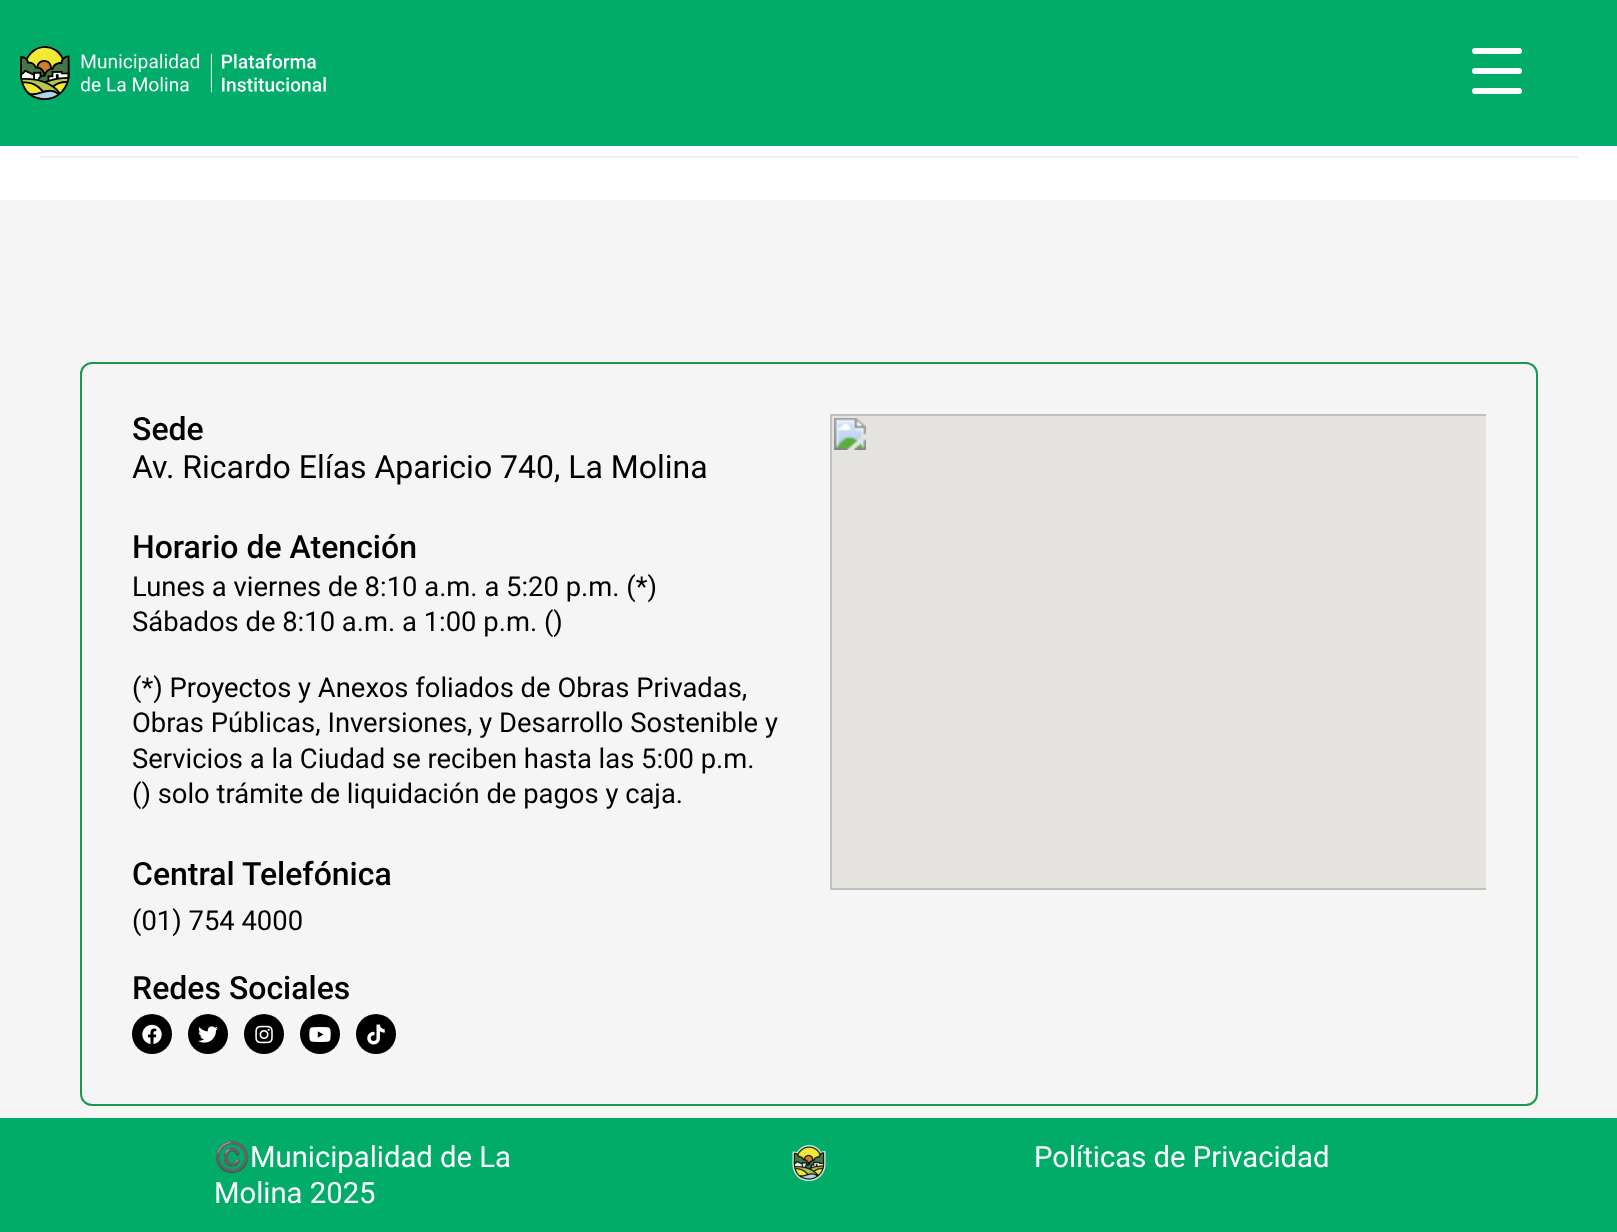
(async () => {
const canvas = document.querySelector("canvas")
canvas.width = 1617
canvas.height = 1232
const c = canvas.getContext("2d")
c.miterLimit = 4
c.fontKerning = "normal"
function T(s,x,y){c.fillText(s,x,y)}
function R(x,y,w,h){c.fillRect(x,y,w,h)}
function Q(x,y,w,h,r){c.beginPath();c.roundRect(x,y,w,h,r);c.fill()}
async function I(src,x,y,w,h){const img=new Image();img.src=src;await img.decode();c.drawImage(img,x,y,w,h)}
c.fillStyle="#f5f5f5"
R(0,0,1617,1232)
c.fillStyle="#00ac68"
R(0,0,1617,146)
c.fillStyle="#fff"
Q(1472,68,50,6,3)
Q(1472,48,50,6,3)
Q(1472,88,50,6,3)
await I("1.png",20,46,306,54)
R(0,146,1617,54)
c.fillStyle="#eee"
R(40,156,1538,2)
c.beginPath()
c.roundRect(81,363,1456,742,11)
c.strokeStyle="#1a984d"
c.lineWidth=2
c.stroke()
c.font="500 32px Roboto"
c.fillStyle="#000"
T("Sede",132,440)
c.font="32px Roboto"
T("Av. Ricardo Elías Aparicio 740, La Molina",132,478)
c.font="500 32px Roboto"
T("Horario de Atención",132,558)
c.font="27.4px Roboto"
T("Lunes a viernes de 8:10 a.m. a 5:20 p.m. (*)",132,596)
T("Sábados de 8:10 a.m. a 1:00 p.m. ()",132,631)
T("(*) Proyectos y Anexos foliados de Obras Privadas,",132,697)
T("Obras Públicas, Inversiones, y Desarrollo Sostenible y",132,732)
T("Servicios a la Ciudad se reciben hasta las 5:00 p.m.",132,768)
T("() solo trámite de liquidación de pagos y caja.",132,803)
c.font="500 32px Roboto"
T("Central Telefónica",132,885)
c.font="27.4px Roboto"
T("(01) 754 4000",132,930)
c.font="500 32px Roboto"
T("Redes Sociales",132,999)
c.beginPath()
c.arc(152,1034,20,0,7)
c.fill()
await I("2.png",142,1024,20,20)
c.beginPath()
c.arc(208,1034,20,0,7)
c.fill()
await I("3.png",198,1026,20,17)
c.beginPath()
c.arc(264,1034,20,0,7)
c.fill()
await I("4.png",255,1025,18,19)
c.beginPath()
c.arc(320,1034,20,0,7)
c.fill()
await I("5.png",309,1027,22,15)
c.beginPath()
c.arc(376,1034,20,0,7)
c.fill()
await I("6.png",367,1024,18,21)
await I("7.png",830,414,656,476)
c.fillStyle="#00ac68"
R(0,1118,1617,114)
c.font="29.25px Noto Color Emoji"
c.fillStyle="#fff"
T("©️",214,1167)
c.font="29.25px Roboto"
T("Municipalidad de La",250,1167)
T("Molina 2025",214,1203)
await I("8.png",792,1144,34,38)
T("Políticas de Privacidad",1034,1167)
})()
